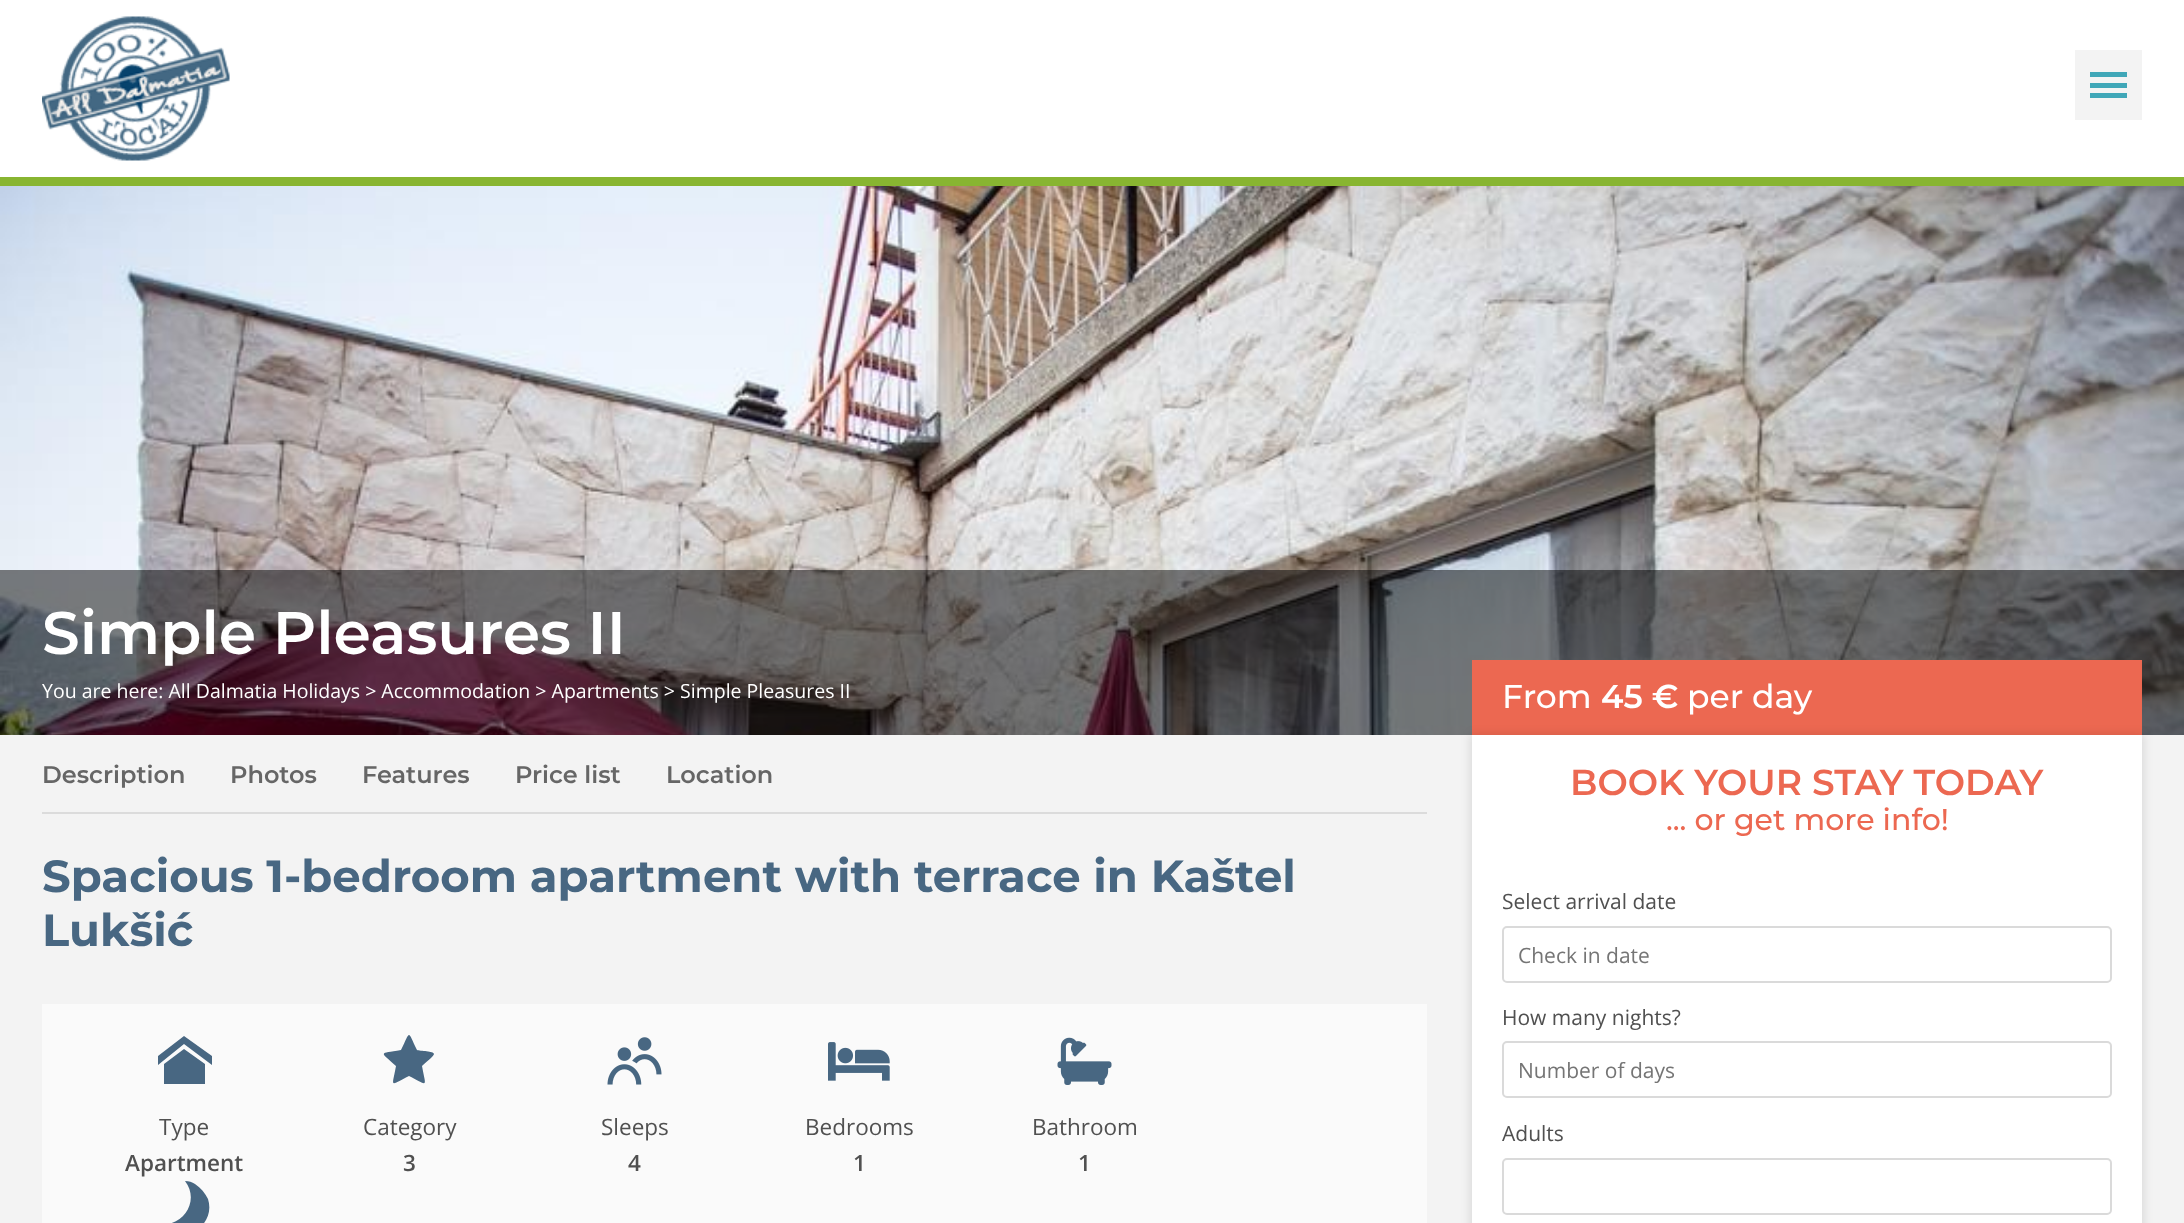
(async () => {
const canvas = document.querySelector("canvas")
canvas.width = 2184
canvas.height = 1223
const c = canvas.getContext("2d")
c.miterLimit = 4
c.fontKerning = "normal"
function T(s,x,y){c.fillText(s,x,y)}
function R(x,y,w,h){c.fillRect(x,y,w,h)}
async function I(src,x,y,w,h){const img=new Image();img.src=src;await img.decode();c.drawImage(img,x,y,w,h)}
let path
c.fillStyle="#fff"
R(0,0,2184,1223)
c.fillStyle="#88b531"
R(0,177,2184,9)
await I("1.png",42,16,188,145)
c.fillStyle="#f3f3f3"
R(2075,50,67,70)
c.fillStyle="#40a7b8"
R(2090,72,37,5)
R(2090,83,37,5)
R(2090,93,37,5)
await I("2.png",0,186,2184,549)
c.fillStyle="#00000080"
R(0,570,2184,165)
c.font="600 60px Montserrat"
c.fillStyle="#fff"
T("Simple Pleasures II",42,654)
c.font="19.5px Open Sans"
T("You are here: All Dalmatia Holidays > Accommodation > Apartments > Simple Pleasures II",42,698)
c.fillStyle="#f3f3f3"
R(0,735,2184,488)
c.fillStyle="#dbdbdb"
R(42,812,1385,2)
c.font="600 24px Montserrat"
c.fillStyle="#666"
T("Description",42,783)
T("Photos",230,783)
T("Features",362,783)
T("Price list",515,783)
T("Location",666,783)
c.font="bold 45px Montserrat"
c.fillStyle="#486782"
T("Spacious 1-bedroom apartment with terrace in Kaštel",42,892)
T("Lukšić",42,946)
c.fillStyle="#fafafa"
R(42,1004,1385,219)
c.fillStyle="#486782"
path = new Path2D("M212 1065l-28-21l-26 21v-9l26-20l28 20zm-7-1v20h-41v-20l20-15z")
c.fill(path)
c.font="22.5px Open Sans"
c.fillStyle="#505050"
T("Type",159,1135)
c.font="600 22.5px Open Sans"
T("Apartment",125,1171)
c.fillStyle="#486782"
path = new Path2D("M434 1054c0 2-10 10-12 12c4 22 7 20-13 10c-20 10-17 12-13-10c-16-15-18-12 5-16c10-20 6-20 16 0c3 1 17 1 17 4z")
c.fill(path)
c.font="22.5px Open Sans"
c.fillStyle="#505050"
T("Category",363,1135)
c.font="600 22.5px Open Sans"
T("3",403,1171)
await I("3.png",607,1037,55,48)
c.font="22.5px Open Sans"
T("Sleeps",601,1135)
c.font="600 22.5px Open Sans"
T("4",628,1171)
await I("4.png",828,1042,62,39)
c.font="22.5px Open Sans"
T("Bedrooms",805,1135)
c.font="600 22.5px Open Sans"
T("1",853,1171)
await I("5.png",1057,1037,55,48)
c.font="22.5px Open Sans"
T("Bathroom",1032,1135)
c.font="600 22.5px Open Sans"
T("1",1078,1171)
c.fillStyle="#486782"
path = new Path2D("M195 1184c-3-2-6-3-10-3c15 19-1 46-25 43c18 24 57 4 48-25c-3-6-7-11-13-15z")
c.fill(path)
c.fillStyle="#ec6851"
R(1472,660,670,75)
c.font="500 33px Montserrat"
c.fillStyle="#fff"
T("From",1502,708)
c.font="600 33px Montserrat"
T("45 €",1601,708)
c.font="500 33px Montserrat"
T("per day",1687,708)
c.fillStyle="#0000001a"
c.filter="blur(5px)"
c.beginPath()
c.rect(1470,734,674,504)
c.fill()
c.filter="none"
c.fillStyle="#fff"
R(1472,735,670,488)
c.font="600 36px Montserrat"
c.fillStyle="#ec6851"
T("BOOK YOUR STAY TODAY",1570,795)
c.font="500 30px Montserrat"
T("... or get more info!",1666,830)
c.font="21px Open Sans"
c.fillStyle="#505050"
T("Select arrival date",1502,909)
c.beginPath()
c.roundRect(1503,927,608,55,4)
c.strokeStyle="#dadada"
c.lineWidth=2
c.stroke()
c.fillStyle="#757575"
T("Check in date",1518,963)
c.fillStyle="#505050"
T("How many nights?",1502,1025)
c.beginPath()
c.roundRect(1503,1042,608,55,4)
c.stroke()
c.fillStyle="#757575"
T("Number of days",1518,1078)
c.fillStyle="#505050"
T("Adults",1502,1141)
c.beginPath()
c.roundRect(1503,1159,608,55,4)
c.stroke()
})()
